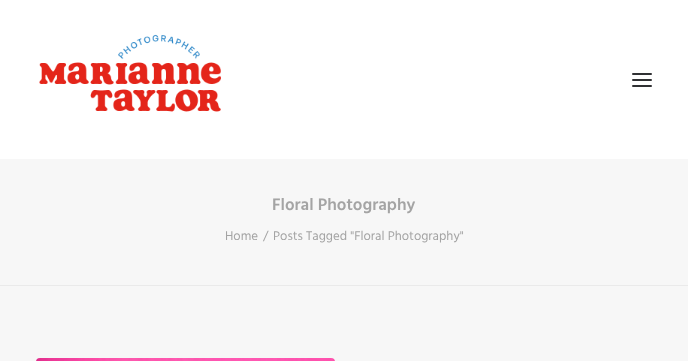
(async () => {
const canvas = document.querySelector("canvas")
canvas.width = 688
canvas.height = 361
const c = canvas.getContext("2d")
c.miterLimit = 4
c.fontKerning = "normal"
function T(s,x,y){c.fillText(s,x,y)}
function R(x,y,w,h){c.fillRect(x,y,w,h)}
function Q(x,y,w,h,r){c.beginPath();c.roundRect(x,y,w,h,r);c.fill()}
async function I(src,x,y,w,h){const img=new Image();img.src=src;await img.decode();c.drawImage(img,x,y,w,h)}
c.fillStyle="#f7f7f7"
R(0,0,688,361)
c.fillStyle="#fff"
R(0,0,688,159)
await I("1.png",39,34,182,78)
c.fillStyle="#303133"
Q(632,79,20,2,1)
Q(632,73,20,2,1)
Q(632,85,20,2,1)
c.fillStyle="#eaeaea"
R(0,285,688,1)
c.font="600 17px Hind"
c.fillStyle="#a4a4a4"
T("Floral Photography",272,210)
c.font="13px Hind"
T("Home",225,240)
T("/",263,240)
T("Posts Tagged \"Floral Photography\"",273,240)
await I("2.png",36,358,299,3)
})()
